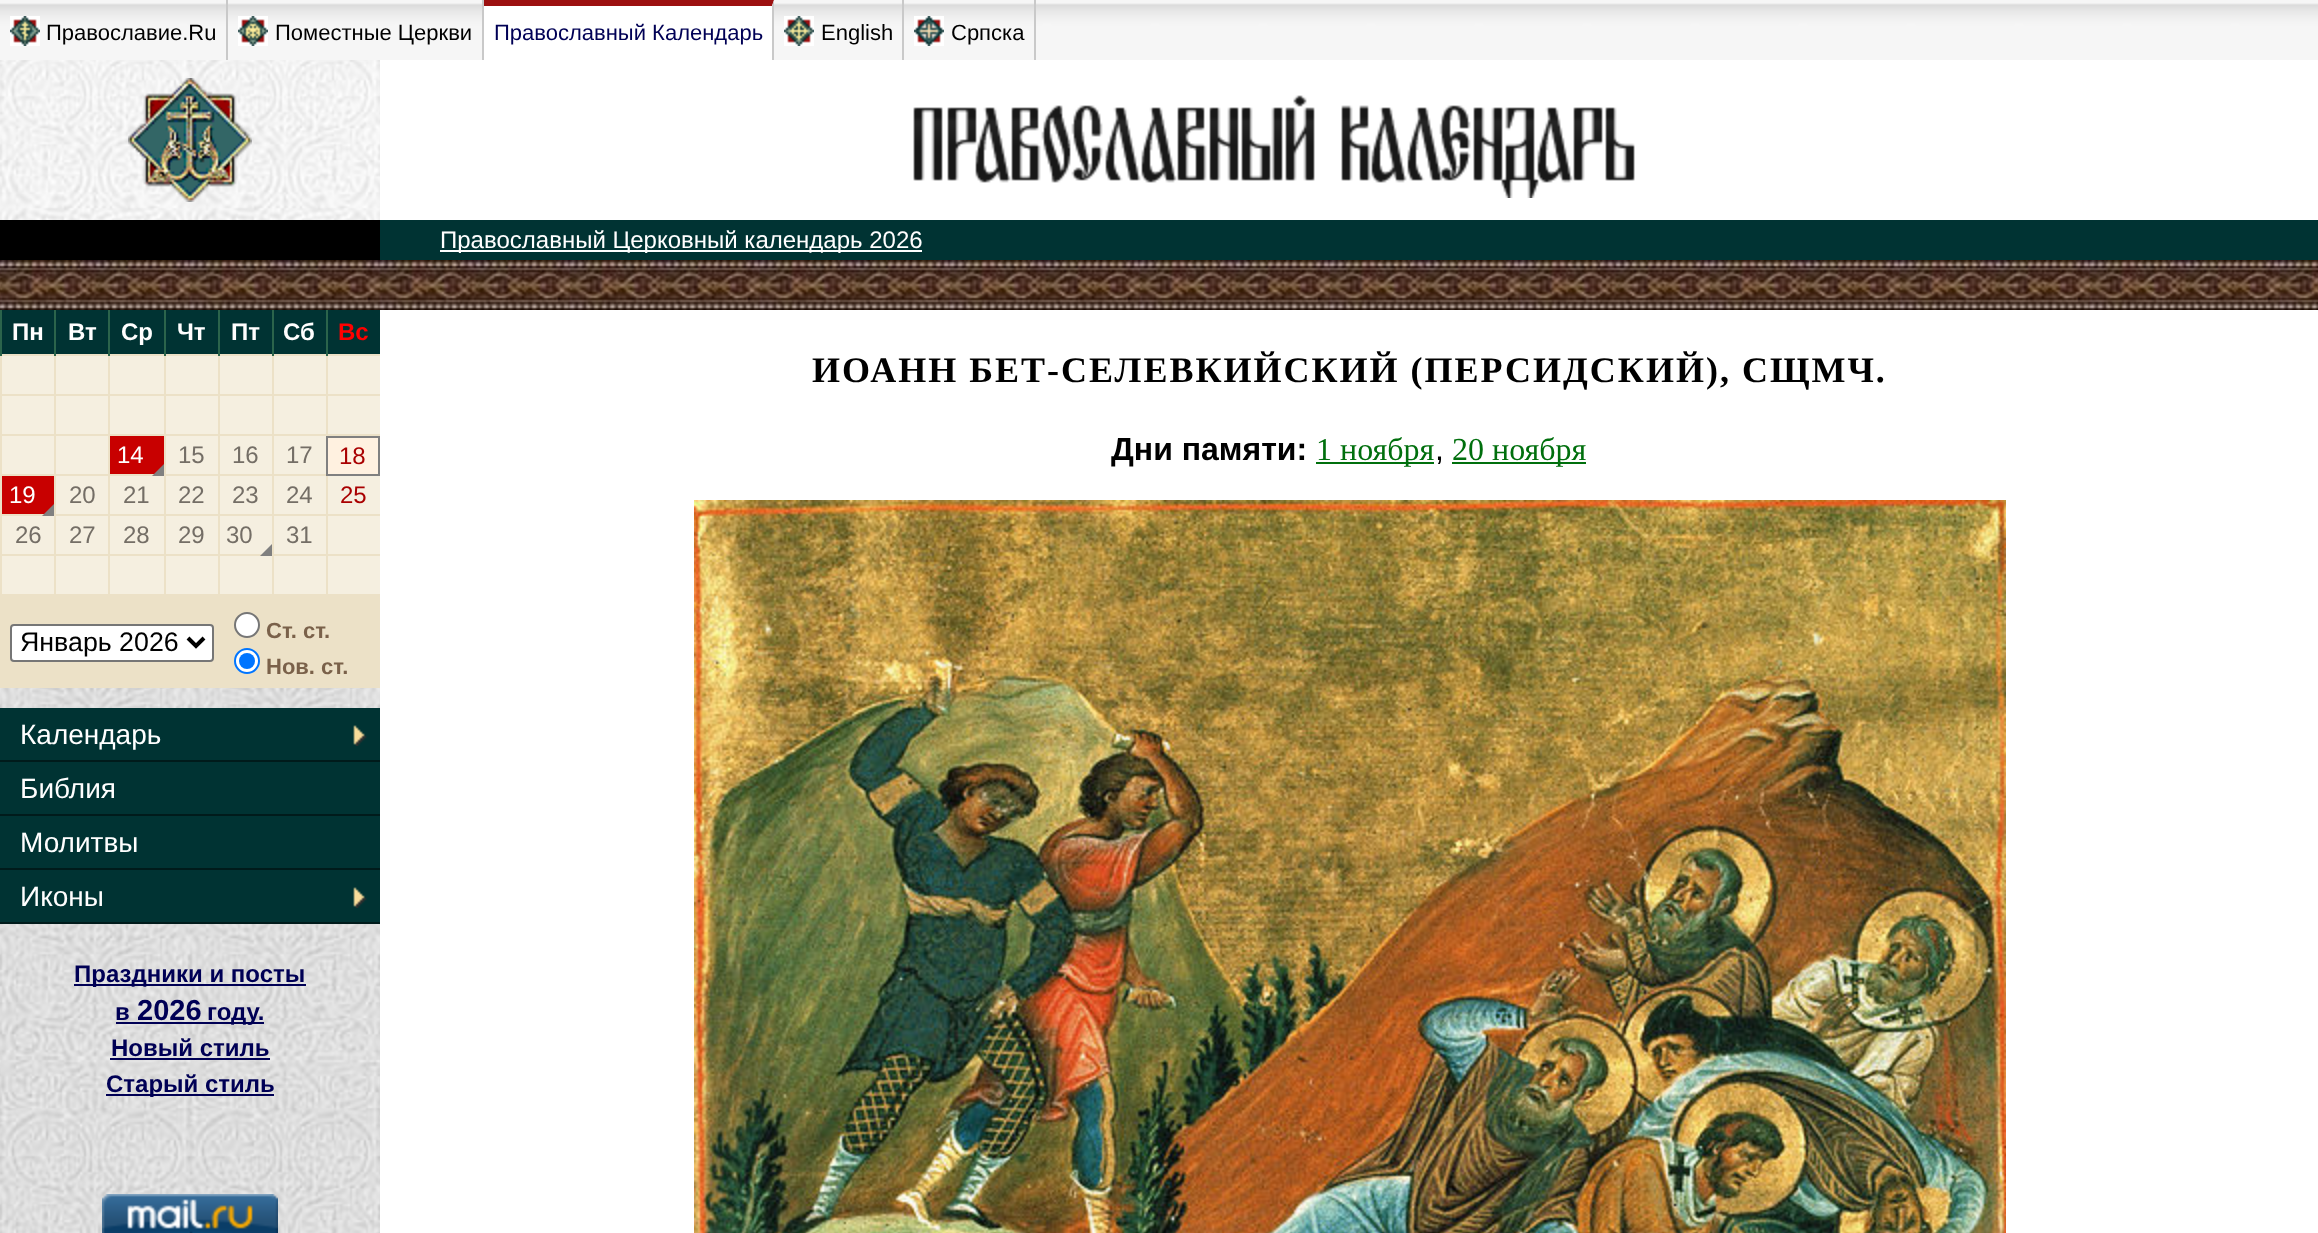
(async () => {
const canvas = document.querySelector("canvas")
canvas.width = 2318
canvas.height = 1233
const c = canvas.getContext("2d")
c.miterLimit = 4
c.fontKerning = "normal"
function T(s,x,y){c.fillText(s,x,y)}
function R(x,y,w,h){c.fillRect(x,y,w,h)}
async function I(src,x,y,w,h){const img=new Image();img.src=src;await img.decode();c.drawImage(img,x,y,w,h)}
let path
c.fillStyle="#fff"
R(0,0,2318,1233)
await I("1.png",0,60,380,160)
await I("2.png",0,0,2318,60)
c.fillStyle="#c9c9c9"
R(226,0,2,60)
await I("3.png",10,16,30,30)
c.font="22px Liberation Sans"
c.fillStyle="#000"
T("Православие.Ru",46,40)
c.fillStyle="#c9c9c9"
R(482,0,2,60)
await I("4.png",238,16,30,30)
c.fillStyle="#000"
T("Поместные Церкви",275,40)
c.fillStyle="#fff"
R(484,0,290,60)
c.fillStyle="#9c1010"
path = new Path2D("M484 0h290l-2 6h-288z")
c.fill(path)
c.fillStyle="#c9c9c9"
path = new Path2D("M774 0v60h-2v-54z")
c.fill(path)
c.fillStyle="#005"
T("Православный Календарь",494,40)
c.fillStyle="#c9c9c9"
R(902,0,2,60)
await I("5.png",784,16,30,30)
c.fillStyle="#000"
T("English",821,40)
c.fillStyle="#c9c9c9"
R(1034,0,2,60)
await I("6.png",914,16,30,30)
c.fillStyle="#000"
T("Српска",951,40)
await I("7.png",128,78,124,124)
await I("8.png",913,95,722,103)
R(0,220,380,40)
c.fillStyle="#033"
R(380,220,1938,40)
c.fillStyle="#fff"
R(440,250,482,2)
c.font="24px Liberation Sans"
T("Православный Церковный календарь 2026",440,248)
await I("9.png",0,260,2318,50)
await I("10.png",0,688,380,545)
c.fillStyle="#033"
R(2,310,52,44)
c.fillStyle="#ece1c7"
R(0,354,380,2)
c.fillStyle="#2b644b"
R(0,310,2,46)
c.font="bold 24px Liberation Sans"
c.fillStyle="#fff"
T("Пн",12,340)
c.fillStyle="#033"
R(56,310,52,44)
c.fillStyle="#2b644b"
R(54,310,2,46)
c.fillStyle="#fff"
T("Вт",68,340)
c.fillStyle="#033"
R(110,310,54,44)
c.fillStyle="#2b644b"
R(108,310,2,46)
c.fillStyle="#fff"
T("Ср",121,340)
c.fillStyle="#033"
R(166,310,52,44)
c.fillStyle="#2b644b"
R(164,310,2,46)
c.fillStyle="#fff"
T("Чт",177,340)
c.fillStyle="#033"
R(220,310,52,44)
c.fillStyle="#2b644b"
R(218,310,2,46)
c.fillStyle="#fff"
T("Пт",231,340)
c.fillStyle="#033"
R(274,310,52,44)
c.fillStyle="#2b644b"
R(272,310,2,46)
c.fillStyle="#fff"
T("Сб",283,340)
c.fillStyle="#033"
R(328,310,52,44)
c.fillStyle="#2b644b"
R(326,310,2,46)
c.fillStyle="#f00"
T("Вс",338,340)
c.fillStyle="#f5efe0"
R(2,356,52,38)
c.fillStyle="#ece1c7"
R(0,394,380,2)
R(0,356,2,40)
c.fillStyle="#f5efe0"
R(56,356,52,38)
c.fillStyle="#ece1c7"
R(54,356,2,40)
c.fillStyle="#f5efe0"
R(110,356,54,38)
c.fillStyle="#ece1c7"
R(108,356,2,40)
c.fillStyle="#f5efe0"
R(166,356,52,38)
c.fillStyle="#ece1c7"
R(164,356,2,40)
c.fillStyle="#f5efe0"
R(220,356,52,38)
c.fillStyle="#ece1c7"
R(218,356,2,40)
c.fillStyle="#f5efe0"
R(274,356,52,38)
c.fillStyle="#ece1c7"
R(272,356,2,40)
c.fillStyle="#f5efe0"
R(328,356,52,38)
c.fillStyle="#ece1c7"
R(326,356,2,40)
c.fillStyle="#f5efe0"
R(2,396,52,38)
c.fillStyle="#ece1c7"
R(0,434,380,2)
R(0,396,2,40)
c.fillStyle="#f5efe0"
R(56,396,52,38)
c.fillStyle="#ece1c7"
R(54,396,2,40)
c.fillStyle="#f5efe0"
R(110,396,54,38)
c.fillStyle="#ece1c7"
R(108,396,2,40)
c.fillStyle="#f5efe0"
R(166,396,52,38)
c.fillStyle="#ece1c7"
R(164,396,2,40)
c.fillStyle="#f5efe0"
R(220,396,52,38)
c.fillStyle="#ece1c7"
R(218,396,2,40)
c.fillStyle="#f5efe0"
R(274,396,52,38)
c.fillStyle="#ece1c7"
R(272,396,2,40)
c.fillStyle="#f5efe0"
R(328,396,52,38)
c.fillStyle="#ece1c7"
R(326,396,2,40)
c.fillStyle="#f5efe0"
R(2,436,52,38)
c.fillStyle="#ece1c7"
R(0,474,154,2)
R(0,436,2,40)
c.fillStyle="#f5efe0"
R(56,436,52,38)
c.fillStyle="#ece1c7"
R(54,436,2,40)
c.fillStyle="#c80000"
R(110,436,54,38)
c.fillStyle="#ece1c7"
R(108,436,2,40)
c.font="24px Liberation Sans"
c.fillStyle="#fff"
T("14",117,463)
c.fillStyle="#808080"
path = new Path2D("M164 476h-12l12-12z")
c.fill(path)
c.fillStyle="#f5efe0"
R(166,436,52,38)
c.fillStyle="#ece1c7"
R(164,474,162,2)
R(164,436,2,40)
c.fillStyle="#746e66"
T("15",178,463)
c.fillStyle="#f5efe0"
R(220,436,52,38)
c.fillStyle="#ece1c7"
R(218,436,2,40)
c.fillStyle="#746e66"
T("16",232,463)
c.fillStyle="#f5efe0"
R(274,436,52,38)
c.fillStyle="#ece1c7"
R(272,436,2,40)
c.fillStyle="#746e66"
T("17",286,463)
c.fillStyle="#fff1e0"
c.beginPath()
c.rect(327,437,52,38)
c.fill()
c.strokeStyle="#808080"
c.lineWidth=2
c.stroke()
c.fillStyle="#a90000"
T("18",339,464)
c.fillStyle="#c80000"
R(2,476,52,38)
c.fillStyle="#ece1c7"
R(0,514,44,2)
R(0,476,2,40)
c.fillStyle="#fff"
T("19",9,503)
c.fillStyle="#808080"
path = new Path2D("M54 516h-12l12-12z")
c.fill(path)
c.fillStyle="#f5efe0"
R(56,476,52,38)
c.fillStyle="#ece1c7"
R(54,514,326,2)
R(54,476,2,40)
c.fillStyle="#746e66"
T("20",69,503)
c.fillStyle="#f5efe0"
R(110,476,54,38)
c.fillStyle="#ece1c7"
R(108,476,2,40)
c.fillStyle="#746e66"
T("21",123,503)
c.fillStyle="#f5efe0"
R(166,476,52,38)
c.fillStyle="#ece1c7"
R(164,476,2,40)
c.fillStyle="#746e66"
T("22",178,503)
c.fillStyle="#f5efe0"
R(220,476,52,38)
c.fillStyle="#ece1c7"
R(218,476,2,40)
c.fillStyle="#746e66"
T("23",232,503)
c.fillStyle="#f5efe0"
R(274,476,52,38)
c.fillStyle="#ece1c7"
R(272,476,2,40)
c.fillStyle="#746e66"
T("24",286,503)
c.fillStyle="#f5efe0"
R(328,476,52,38)
c.fillStyle="#ece1c7"
R(326,476,2,40)
c.fillStyle="#a90000"
T("25",340,503)
c.fillStyle="#f5efe0"
R(2,516,52,38)
c.fillStyle="#ece1c7"
R(0,554,262,2)
R(0,516,2,40)
c.fillStyle="#746e66"
T("26",15,543)
c.fillStyle="#f5efe0"
R(56,516,52,38)
c.fillStyle="#ece1c7"
R(54,516,2,40)
c.fillStyle="#746e66"
T("27",69,543)
c.fillStyle="#f5efe0"
R(110,516,54,38)
c.fillStyle="#ece1c7"
R(108,516,2,40)
c.fillStyle="#746e66"
T("28",123,543)
c.fillStyle="#f5efe0"
R(166,516,52,38)
c.fillStyle="#ece1c7"
R(164,516,2,40)
c.fillStyle="#746e66"
T("29",178,543)
c.fillStyle="#f5efe0"
R(220,516,52,38)
c.fillStyle="#ece1c7"
R(218,516,2,40)
c.fillStyle="#746e66"
T("30",226,543)
c.fillStyle="#808080"
path = new Path2D("M272 556h-12l12-12z")
c.fill(path)
c.fillStyle="#f5efe0"
R(274,516,52,38)
c.fillStyle="#ece1c7"
R(272,554,108,2)
R(272,516,2,40)
c.fillStyle="#746e66"
T("31",286,543)
c.fillStyle="#f5efe0"
R(328,516,52,38)
c.fillStyle="#ece1c7"
R(326,516,2,40)
c.fillStyle="#f5efe0"
R(2,556,52,38)
c.fillStyle="#ece1c7"
R(0,594,380,94)
R(0,556,2,40)
c.fillStyle="#f5efe0"
R(56,556,52,38)
c.fillStyle="#ece1c7"
R(54,556,2,40)
c.fillStyle="#f5efe0"
R(110,556,54,38)
c.fillStyle="#ece1c7"
R(108,556,2,40)
c.fillStyle="#f5efe0"
R(166,556,52,38)
c.fillStyle="#ece1c7"
R(164,556,2,40)
c.fillStyle="#f5efe0"
R(220,556,52,38)
c.fillStyle="#ece1c7"
R(218,556,2,40)
c.fillStyle="#f5efe0"
R(274,556,52,38)
c.fillStyle="#ece1c7"
R(272,556,2,40)
c.fillStyle="#f5efe0"
R(328,556,52,38)
c.fillStyle="#ece1c7"
R(326,556,2,40)
c.fillStyle="#fff"
c.beginPath()
c.roundRect(11,625,202,36,3)
c.fill()
c.strokeStyle="#767676"
c.stroke()
path = new Path2D("M188 638l8 8l8-8")
c.strokeStyle="#000"
c.lineWidth=4
c.stroke(path)
c.font="26.75px Liberation Sans"
c.fillStyle="#000"
T("Январь 2026",20,651)
c.fillStyle="#fff"
c.beginPath()
c.arc(247,625,12,0,7)
c.fill()
c.strokeStyle="#767676"
c.lineWidth=2
c.stroke()
c.font="bold 22px Liberation Sans"
c.fillStyle="#7a614a"
T("Ст. ст.",266,638)
c.fillStyle="#fff"
c.beginPath()
c.arc(247,661,12,0,7)
c.fill()
c.strokeStyle="#0075ff"
c.stroke()
c.fillStyle="#0075ff"
c.beginPath()
c.arc(247,661,8,0,7)
c.fill()
c.fillStyle="#7a614a"
T("Нов. ст.",266,674)
c.fillStyle="#033"
R(0,708,380,52)
await I("11.png",353,725,14,21)
c.fillStyle="#001b1b"
R(0,760,380,2)
c.font="28px Liberation Sans"
c.fillStyle="#fff"
T("Календарь",20,744)
c.fillStyle="#033"
R(0,762,380,52)
c.fillStyle="#001b1b"
R(0,814,380,2)
c.fillStyle="#fff"
T("Библия",20,798)
c.fillStyle="#033"
R(0,816,380,52)
c.fillStyle="#001b1b"
R(0,868,380,2)
c.fillStyle="#fff"
T("Молитвы",20,852)
c.fillStyle="#033"
R(0,870,380,52)
await I("11.png",353,887,14,21)
c.fillStyle="#001b1b"
R(0,922,380,2)
c.fillStyle="#fff"
T("Иконы",20,906)
c.fillStyle="#005"
R(74,984,232,2)
c.font="bold 24px Liberation Sans"
T("Праздники и посты",74,982)
T("в",115,1020)
c.font="bold 29px Liberation Sans"
T("2026",137,1020)
R(116,1022,148,2)
c.font="bold 24px Liberation Sans"
T("году.",207,1020)
T("Новый стиль",111,1056)
R(110,1058,160,2)
R(106,1094,168,2)
T("Старый стиль",106,1092)
await I("12.png",102,1194,176,39)
c.letterSpacing="2px"
c.font="bold 36px Liberation Serif"
c.fillStyle="#000"
T("ИОАНН БЕТ-СЕЛЕВКИЙСКИЙ (ПЕРСИДСКИЙ), СЩМЧ.",812,382)
c.letterSpacing="0px"
c.font="bold 32px Liberation Sans"
T("Дни памяти:",1111,460)
c.fillStyle="#006f0d"
R(1316,462,118,2)
c.font="32px Liberation Serif"
T("1 ноября",1316,460)
c.font="32px Liberation Sans"
c.fillStyle="#000"
T(",",1435,460)
c.fillStyle="#006f0d"
R(1452,462,134,2)
c.font="32px Liberation Serif"
T("20 ноября",1452,460)
await I("13.png",694,500,1312,733)
})()
